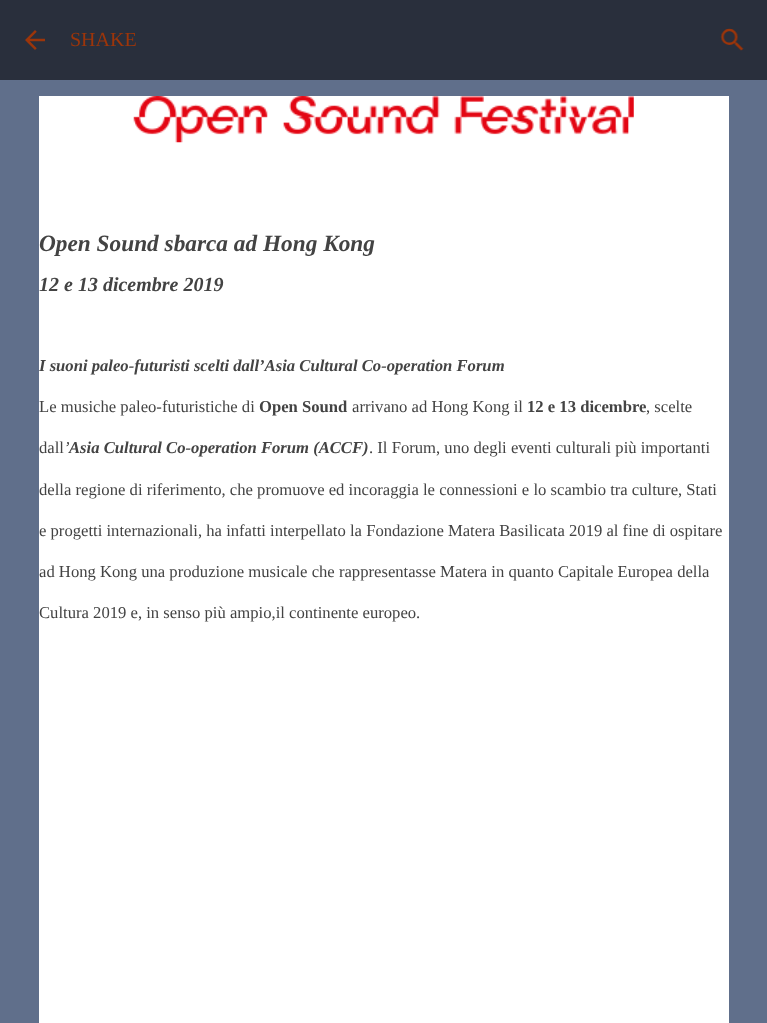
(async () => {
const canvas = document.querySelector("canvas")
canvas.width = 767
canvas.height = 1023
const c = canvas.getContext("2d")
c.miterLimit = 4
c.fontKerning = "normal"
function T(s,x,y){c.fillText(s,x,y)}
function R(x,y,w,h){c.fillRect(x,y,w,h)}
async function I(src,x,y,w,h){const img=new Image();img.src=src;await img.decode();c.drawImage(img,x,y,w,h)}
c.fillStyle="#606f8b"
R(0,0,767,1023)
c.fillStyle="#292f3c"
R(0,0,767,80)
await I("1.png",25,30,20,20)
c.font="20px Liberation Serif"
c.fillStyle="#9c350a"
T("SHAKE",70,46)
await I("2.png",720,28,24,23)
c.fillStyle="#fff"
R(39,96,690,927)
await I("3.png",133,96,501,47)
c.font="italic bold 23.3px Liberation Serif"
c.fillStyle="#434343"
T("Open Sound sbarca ad Hong Kong",39,251)
c.font="italic bold 20px Liberation Serif"
T("12 e 13 dicembre 2019",39,291)
c.font="italic bold 16.65px Liberation Serif"
T("I suoni paleo-futuristi scelti dall’Asia Cultural Co-operation Forum",39,371)
c.font="16.65px Liberation Serif"
T("Le musiche paleo-futuristiche di",39,412)
c.font="bold 16.65px Liberation Serif"
T("Open Sound",259,412)
c.font="16.65px Liberation Serif"
T("arrivano ad Hong Kong il",352,412)
c.font="bold 16.65px Liberation Serif"
T("12 e 13 dicembre",527,412)
c.font="16.65px Liberation Serif"
T(", scelte",646,412)
T("dall",39,453)
c.font="italic 16.65px Liberation Serif"
T("’",64,453)
c.font="italic bold 16.65px Liberation Serif"
T("Asia Cultural Co-operation Forum (ACCF)",69,453)
c.font="16.65px Liberation Serif"
T(". Il Forum, uno degli eventi culturali più importanti",369,453)
T("della regione di riferimento, che promuove ed incoraggia le connessioni e lo scambio tra culture, Stati",39,495)
T("e progetti internazionali, ha infatti interpellato la Fondazione Matera Basilicata 2019 al fine di ospitare",39,536)
T("ad Hong Kong una produzione musicale che rappresentasse Matera in quanto Capitale Europea della",39,577)
T("Cultura 2019 e, in senso più ampio,il continente europeo.",39,618)
})()
